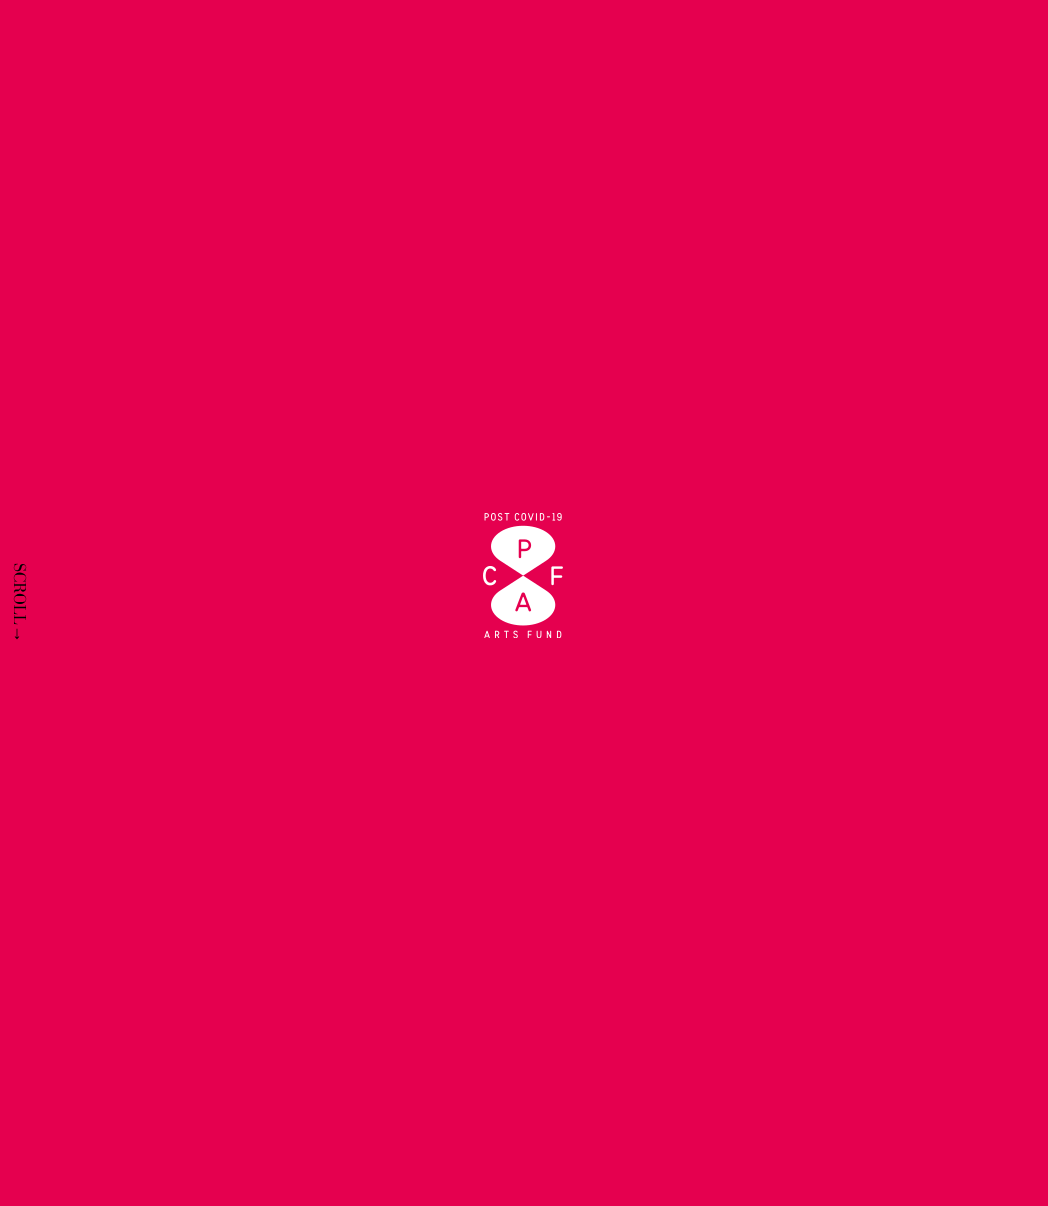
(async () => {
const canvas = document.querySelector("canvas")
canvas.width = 1048
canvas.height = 1206
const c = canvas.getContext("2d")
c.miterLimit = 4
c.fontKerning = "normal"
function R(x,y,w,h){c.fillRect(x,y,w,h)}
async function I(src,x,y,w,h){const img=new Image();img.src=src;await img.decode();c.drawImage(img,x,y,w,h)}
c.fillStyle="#e5004f"
R(0,0,1048,1206)
c.letterSpacing="-0.25px"
c.font="300 18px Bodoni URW"
c.fillStyle="#000"
c.save()
c.translate(14,563)
c.rotate(90 * Math.PI / 180)
c.fillText("SCROLL",0,0)
c.restore()
c.font="18px Liberation Serif"
c.save()
c.translate(14,625)
c.rotate(90 * Math.PI / 180)
c.fillText("→",0,0)
c.restore()
await I("1.png",483,513,80,125)
})()
